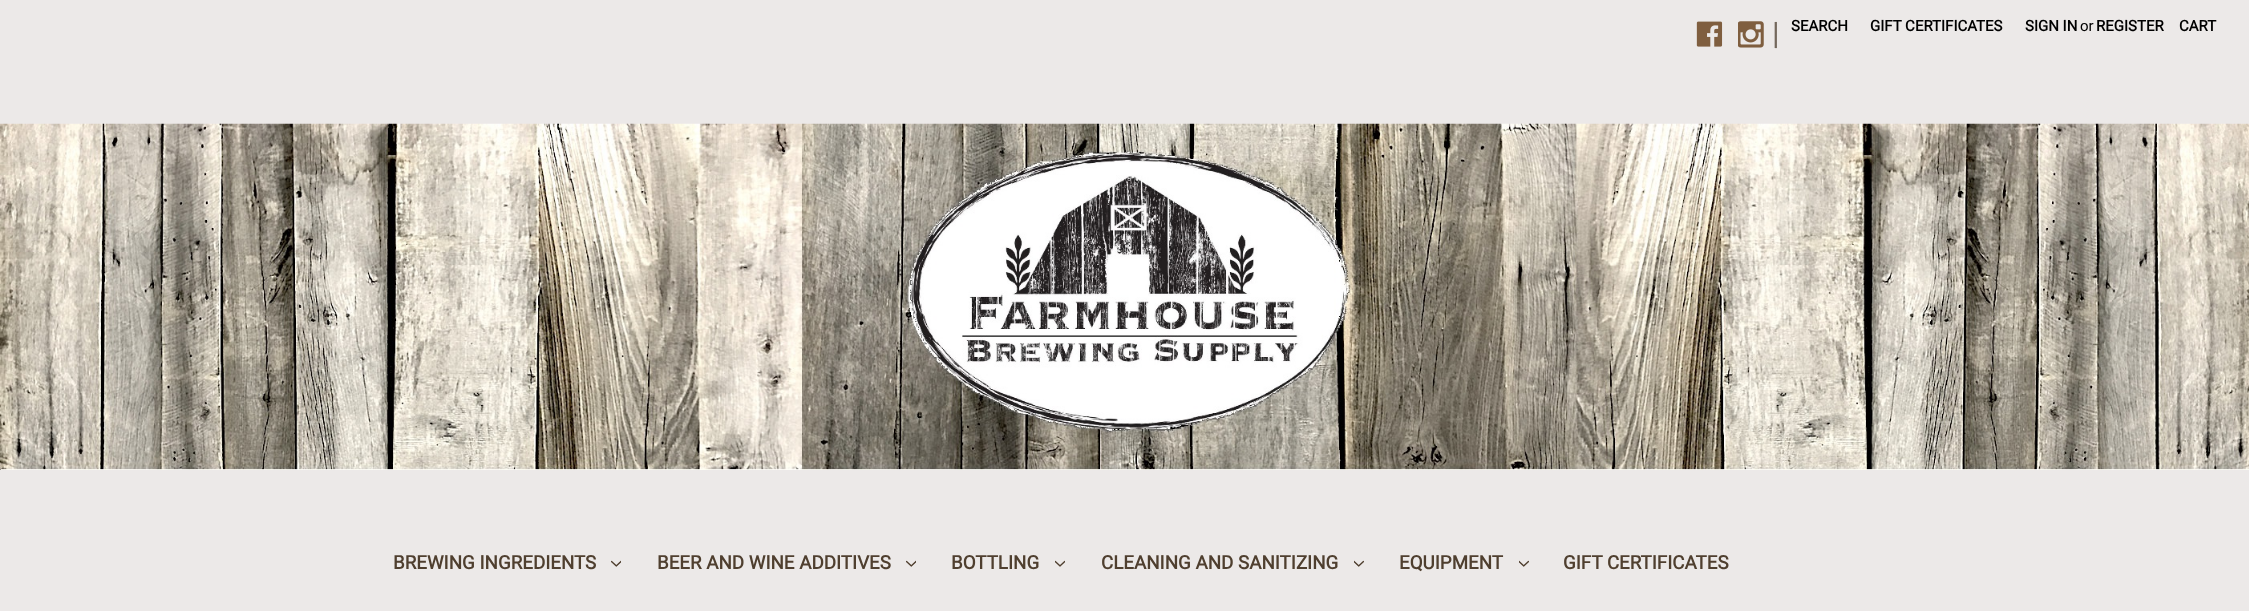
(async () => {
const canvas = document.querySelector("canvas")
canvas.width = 2249
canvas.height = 611
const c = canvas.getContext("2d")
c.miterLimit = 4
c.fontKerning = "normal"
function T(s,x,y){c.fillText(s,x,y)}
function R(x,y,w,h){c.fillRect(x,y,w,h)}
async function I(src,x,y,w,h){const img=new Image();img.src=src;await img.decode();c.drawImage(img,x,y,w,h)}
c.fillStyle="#ece9e8"
R(0,0,2249,611)
await I("1.png",1696,21,27,26)
await I("2.png",1738,21,26,27)
c.font="31px Roboto"
c.fillStyle="#74685c"
T("|",1772,44)
c.font="bold 15px Roboto"
c.fillStyle="#000"
T("SEARCH",1791,31)
T("GIFT CERTIFICATES",1870,31)
T("SIGN IN",2025,31)
c.font="15px Roboto"
T("or",2080,31)
c.font="bold 15px Roboto"
T("REGISTER",2096,31)
T("CART",2179,31)
await I("3.png",0,123,2249,347)
c.font="bold 18.75px Roboto"
c.fillStyle="#4f3f2f"
T("BREWING INGREDIENTS",393,569)
await I("4.png",611,560,10,7)
T("BEER AND WINE ADDITIVES",657,569)
await I("4.png",906,560,10,7)
T("BOTTLING",951,569)
await I("5.png",1055,560,10,7)
T("CLEANING AND SANITIZING",1101,569)
await I("6.png",1354,560,10,7)
T("EQUIPMENT",1399,569)
await I("6.png",1519,560,10,7)
T("GIFT CERTIFICATES",1563,569)
})()
